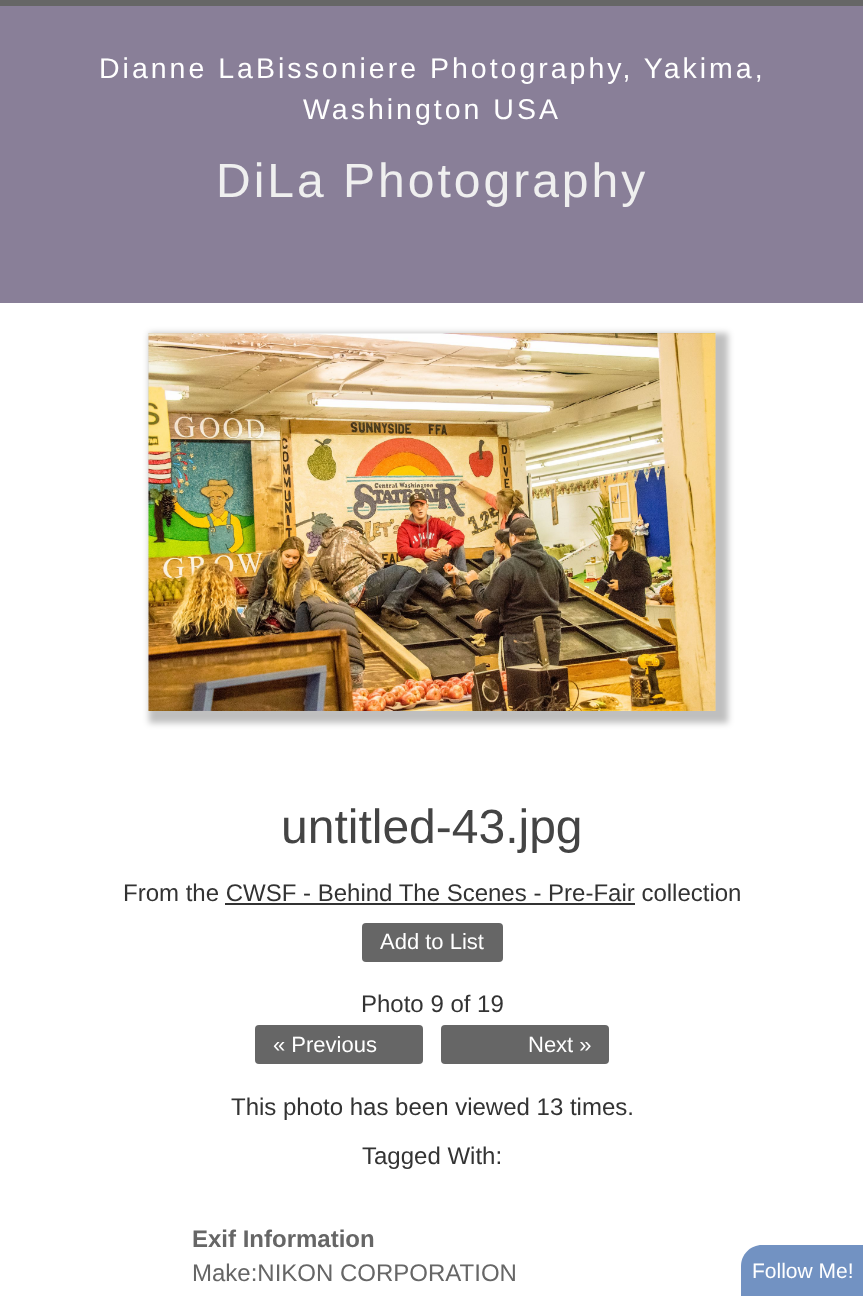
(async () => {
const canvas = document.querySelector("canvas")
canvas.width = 863
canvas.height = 1296
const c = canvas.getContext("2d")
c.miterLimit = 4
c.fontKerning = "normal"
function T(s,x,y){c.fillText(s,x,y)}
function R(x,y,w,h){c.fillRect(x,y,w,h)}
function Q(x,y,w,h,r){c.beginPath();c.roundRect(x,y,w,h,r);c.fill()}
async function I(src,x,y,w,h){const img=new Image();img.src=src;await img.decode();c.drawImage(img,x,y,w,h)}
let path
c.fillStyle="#fff"
R(0,0,863,1296)
c.fillStyle="#897f98"
R(0,6,863,297)
c.fillStyle="#666"
R(0,0,863,6)
c.letterSpacing="3px"
c.font="28.5px Liberation Sans"
c.fillStyle="#fff"
T("Dianne LaBissoniere Photography, Yakima,",99,78)
T("Washington USA",303,119)
c.font="48px Liberation Sans"
c.fillStyle="#efefef"
T("DiLa Photography",216,197)
c.fillStyle="#00000040"
c.filter="blur(3px)"
c.beginPath()
c.rect(149,333,579,390)
c.fill()
c.filter="none"
await I("1.png",148,333,568,378)
c.letterSpacing="0px"
c.fillStyle="#444"
T("untitled-43.jpg",281,843)
c.font="24px Liberation Sans"
c.fillStyle="#333"
T("From the CWSF - Behind The Scenes - Pre-Fair collection",123,901)
R(225,903,410,2)
c.fillStyle="#666"
Q(362,923,141,39,4)
c.font="22px Liberation Sans"
c.fillStyle="#fff"
T("Add to List",380,949)
c.font="24px Liberation Sans"
c.fillStyle="#333"
T("Photo 9 of 19",361,1012)
c.fillStyle="#666"
Q(255,1025,168,39,4)
c.font="22px Liberation Sans"
c.fillStyle="#fff"
T("« Previous",273,1052)
c.fillStyle="#666"
Q(441,1025,168,39,4)
c.fillStyle="#fff"
T("Next »",528,1052)
c.font="24px Liberation Sans"
c.fillStyle="#333"
T("This photo has been viewed 13 times.",231,1115)
T("Tagged With:",362,1164)
c.font="bold 24px Liberation Sans"
c.fillStyle="#666"
T("Exif Information",192,1247)
c.font="24px Liberation Sans"
T("Make:NIKON CORPORATION",192,1281)
c.fillStyle="#7292c2"
path = new Path2D("M762 1245h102v51h-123v-30c0-11.5 9.5-21 21-21z")
c.fill(path)
c.font="21px Liberation Sans"
c.fillStyle="#fff"
T("Follow Me!",752,1278)
})()
